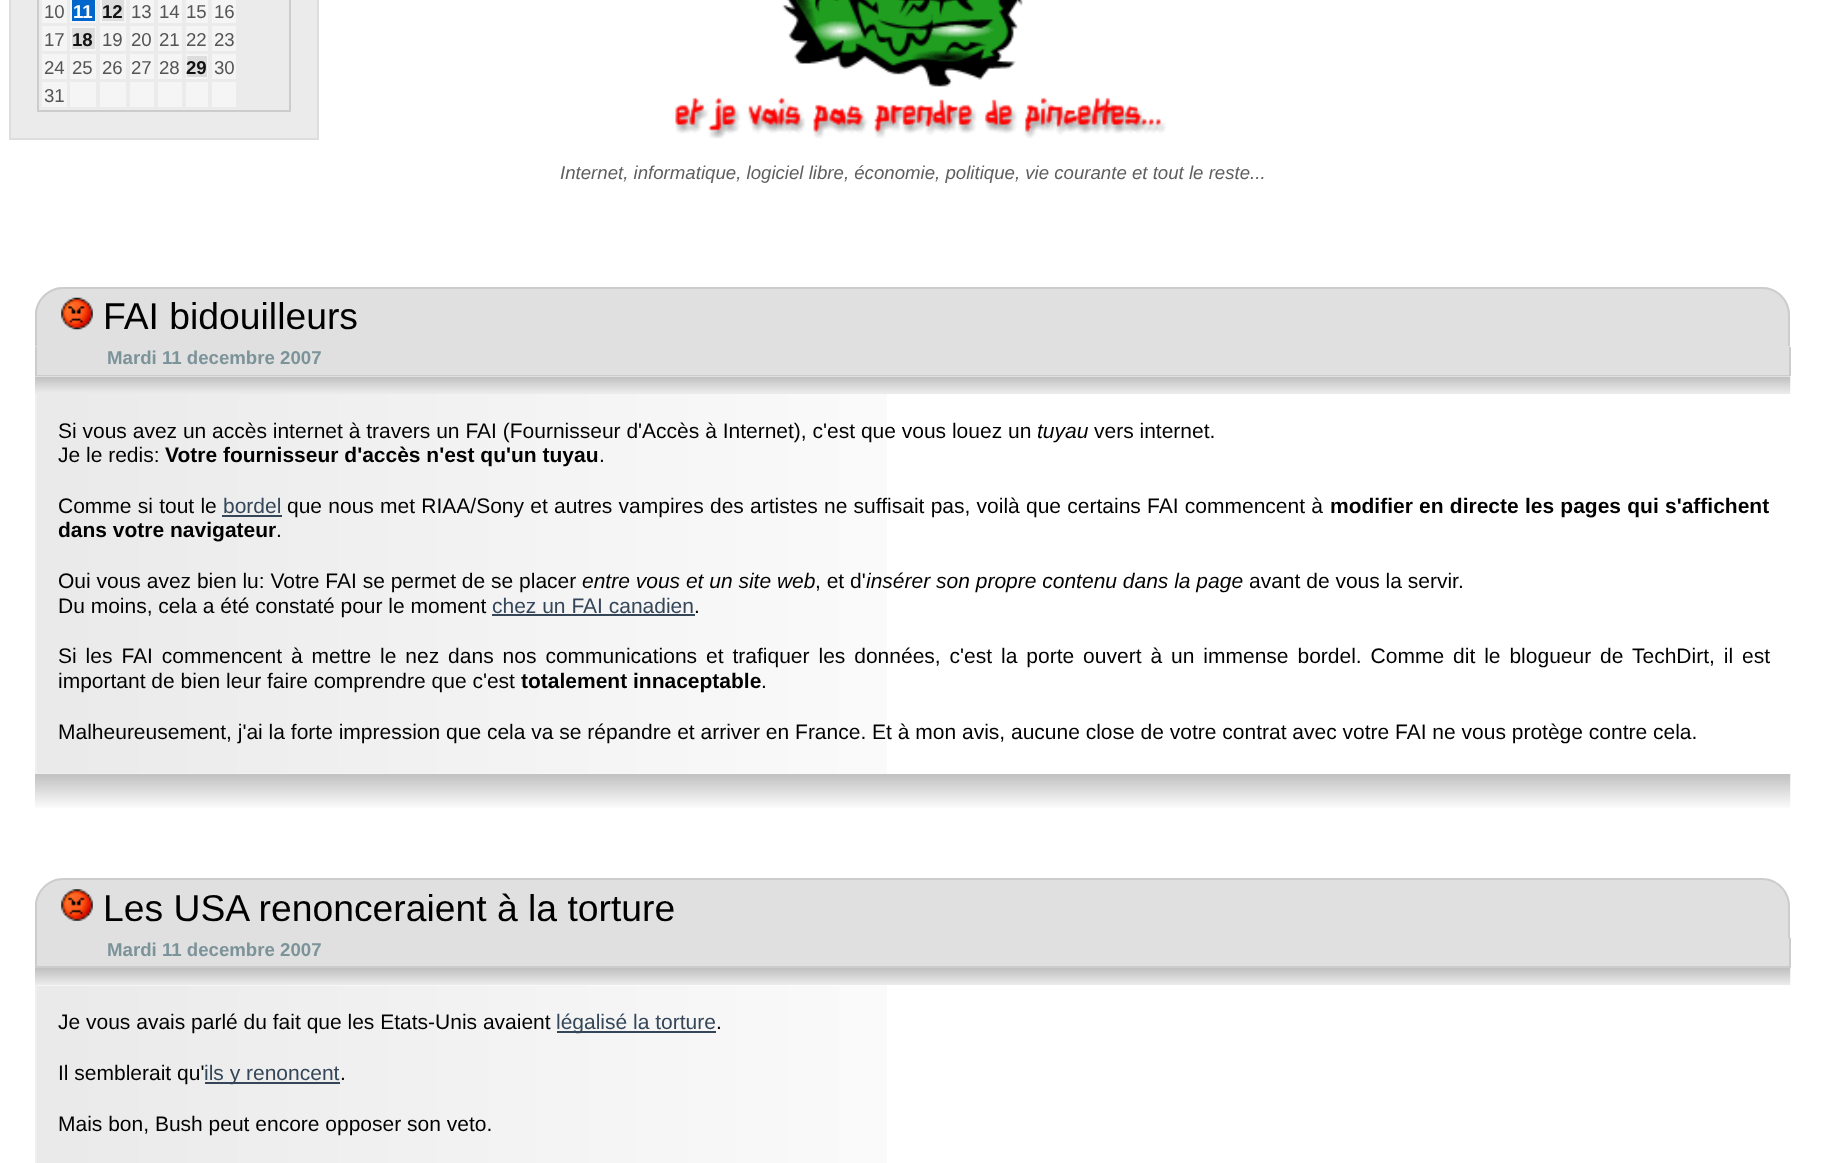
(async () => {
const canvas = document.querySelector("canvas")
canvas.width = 1824
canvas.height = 1163
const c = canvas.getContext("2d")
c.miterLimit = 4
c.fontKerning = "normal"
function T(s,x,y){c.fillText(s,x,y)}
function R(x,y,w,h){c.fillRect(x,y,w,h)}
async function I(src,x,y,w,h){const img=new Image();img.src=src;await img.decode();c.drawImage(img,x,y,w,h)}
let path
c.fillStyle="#fff"
R(0,0,1824,1163)
c.fillStyle="#ebebeb"
c.beginPath()
c.rect(10,-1,308,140)
c.fill()
c.strokeStyle="#ddd"
c.lineWidth=2
c.stroke()
c.strokeStyle="#ccc"
c.strokeRect(38,-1,252,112)
c.fillStyle="#f5f5f5"
R(42,0,25,23)
c.font="18.65px Liberation Sans"
c.fillStyle="#555"
T("10",44,18)
c.fillStyle="#f5f5f5"
R(70,0,26,23)
c.fillStyle="#06c"
R(72,0,23,21)
c.font="bold 18.65px Liberation Sans"
c.fillStyle="#fff"
T("11",73,18)
c.fillStyle="#f5f5f5"
R(100,0,26,23)
c.fillStyle="#ddd"
R(102,0,22,21)
c.fillStyle="#111"
T("12",102,18)
c.fillStyle="#f5f5f5"
R(130,0,24,23)
c.font="18.65px Liberation Sans"
c.fillStyle="#555"
T("13",131,18)
c.fillStyle="#f5f5f5"
R(158,0,24,23)
c.fillStyle="#555"
T("14",159,18)
c.fillStyle="#f5f5f5"
R(186,0,22,23)
c.fillStyle="#555"
T("15",186,18)
c.fillStyle="#f5f5f5"
R(212,0,24,23)
c.fillStyle="#555"
T("16",214,18)
c.fillStyle="#f5f5f5"
R(42,26,25,25)
c.fillStyle="#555"
T("17",44,46)
c.fillStyle="#f5f5f5"
R(70,26,26,25)
c.fillStyle="#ddd"
R(72,28,23,21)
c.font="bold 18.65px Liberation Sans"
c.fillStyle="#111"
T("18",72,46)
c.fillStyle="#f5f5f5"
R(100,26,26,25)
c.font="18.65px Liberation Sans"
c.fillStyle="#555"
T("19",102,46)
c.fillStyle="#f5f5f5"
R(130,26,24,25)
c.fillStyle="#555"
T("20",131,46)
c.fillStyle="#f5f5f5"
R(158,26,24,25)
c.fillStyle="#555"
T("21",159,46)
c.fillStyle="#f5f5f5"
R(186,26,22,25)
c.fillStyle="#555"
T("22",186,46)
c.fillStyle="#f5f5f5"
R(212,26,24,25)
c.fillStyle="#555"
T("23",214,46)
c.fillStyle="#f5f5f5"
R(42,54,25,25)
c.fillStyle="#555"
T("24",44,74)
c.fillStyle="#f5f5f5"
R(70,54,26,25)
c.fillStyle="#555"
T("25",72,74)
c.fillStyle="#f5f5f5"
R(100,54,26,25)
c.fillStyle="#555"
T("26",102,74)
c.fillStyle="#f5f5f5"
R(130,54,24,25)
c.fillStyle="#555"
T("27",131,74)
c.fillStyle="#f5f5f5"
R(158,54,24,25)
c.fillStyle="#555"
T("28",159,74)
c.fillStyle="#f5f5f5"
R(186,54,22,25)
c.fillStyle="#ddd"
R(187,56,20,21)
c.font="bold 18.65px Liberation Sans"
c.fillStyle="#111"
T("29",186,74)
c.fillStyle="#f5f5f5"
R(212,54,24,25)
c.font="18.65px Liberation Sans"
c.fillStyle="#555"
T("30",214,74)
c.fillStyle="#f5f5f5"
R(42,82,25,25)
c.fillStyle="#555"
T("31",44,102)
c.fillStyle="#f5f5f5"
R(70,82,26,25)
R(100,82,26,25)
R(130,82,24,25)
R(158,82,24,25)
R(186,82,22,25)
R(212,82,24,25)
await I("1.png",675,0,491,139)
c.font="italic 18.65px Liberation Sans"
c.fillStyle="#5f5f5f"
T("Internet, informatique, logiciel libre, économie, politique, vie courante et tout le reste...",560,179)
c.fillStyle="#e0e0e0"
c.beginPath()
c.roundRect(35,287,1755,60,[28,28,0,0])
c.fill()
c.fillStyle="#ccc"
path = new Path2D("M63 287h1699c16 0 28 13 28 28v31h-1755v-31c0-15 13-28 28-28zm0 2h1699c15 0 26 12 26 26v31h-1751v-31c0-14 12-26 26-26z")
c.fill(path,"evenodd")
await I("2.png",61,297,32,33)
c.font="37.3px Liberation Sans"
c.fillStyle="#000"
T("FAI bidouilleurs",103,329)
c.fillStyle="#e0e0e0"
R(37,347,1752,28)
c.fillStyle="#ccc"
R(1789,347,2,29)
R(35,375,1755,1)
R(35,347,2,29)
c.font="bold 18.65px Liberation Sans"
c.fillStyle="#7c9399"
T("Mardi 11 decembre 2007",107,364)
await I("3.png",35,376,1756,18)
await I("5.png",35,773,1756,35)
c.fillStyle="#fff"
R(37,773,1753,1)
await I("4.png",37,394,850,380)
c.fillStyle="#efefef"
R(35,394,2,380)
c.font="21px Liberation Sans"
c.fillStyle="#000"
T("Si vous avez un accès internet à travers un FAI (Fournisseur d'Accès à Internet), c'est que vous louez un",58,438)
c.font="italic 21px Liberation Sans"
T("tuyau",1037,438)
c.font="21px Liberation Sans"
T("vers internet.",1094,438)
T("Je le redis:",58,462)
c.font="bold 21px Liberation Sans"
T("Votre fournisseur d'accès n'est qu'un tuyau",165,462)
c.font="21px Liberation Sans"
T(".",599,462)
c.wordSpacing="0.4px"
T("Comme si tout le",58,513)
c.wordSpacing="0px"
c.fillStyle="#344658"
T("bordel",223,513)
R(222,515,60,2)
c.wordSpacing="0.4px"
c.fillStyle="#000"
T("que nous met RIAA/Sony et autres vampires des artistes ne suffisait pas, voilà que certains FAI commencent à",287,513)
c.font="bold 21px Liberation Sans"
T("modifier en directe les pages qui s'affichent",1330,513)
c.wordSpacing="0px"
T("dans votre navigateur",58,537)
c.font="21px Liberation Sans"
T(".",276,537)
T("Oui vous avez bien lu: Votre FAI se permet de se placer",58,588)
c.font="italic 21px Liberation Sans"
T("entre vous et un site web",582,588)
c.font="21px Liberation Sans"
T(", et d'",815,588)
c.font="italic 21px Liberation Sans"
T("insérer son propre contenu dans la page",866,588)
c.font="21px Liberation Sans"
T("avant de vous la servir.",1249,588)
T("Du moins, cela a été constaté pour le moment",58,613)
c.fillStyle="#344658"
T("chez un FAI canadien",492,613)
R(492,614,203,2)
c.fillStyle="#000"
T(".",694,613)
c.wordSpacing="3.1px"
T("Si les FAI commencent à mettre le nez dans nos communications et trafiquer les données, c'est la porte ouvert à un immense bordel. Comme dit le blogueur de TechDirt, il est",58,663)
c.wordSpacing="0px"
T("important de bien leur faire comprendre que c'est",58,688)
c.font="bold 21px Liberation Sans"
T("totalement innaceptable",521,688)
c.font="21px Liberation Sans"
T(".",761,688)
T("Malheureusement, j'ai la forte impression que cela va se répandre et arriver en France. Et à mon avis, aucune close de votre contrat avec votre FAI ne vous protège contre cela.",58,739)
c.fillStyle="#e0e0e0"
c.beginPath()
c.roundRect(35,879,1755,59,[28,28,0,0])
c.fill()
c.fillStyle="#ccc"
path = new Path2D("M63 878h1699c16 0 28 13 28 28v32h-1755v-32c0-15 13-28 28-28zm0 2h1699c15 0 26 12 26 26v32h-1751v-32c0-14 12-26 26-26z")
c.fill(path,"evenodd")
await I("6.png",61,889,32,32)
c.font="37.3px Liberation Sans"
c.fillStyle="#000"
T("Les USA renonceraient à la torture",103,921)
c.fillStyle="#e0e0e0"
R(37,938,1752,28)
c.fillStyle="#ccc"
R(1789,938,2,30)
R(35,966,1755,2)
R(35,938,2,30)
c.font="bold 18.65px Liberation Sans"
c.fillStyle="#7c9399"
T("Mardi 11 decembre 2007",107,956)
await I("7.png",35,968,1756,18)
c.fillStyle="#fff"
R(37,985,1753,1)
await I("8.png",37,985,850,178)
c.fillStyle="#efefef"
R(35,985,2,178)
c.font="21px Liberation Sans"
c.fillStyle="#000"
T("Je vous avais parlé du fait que les Etats-Unis avaient",58,1029)
c.fillStyle="#344658"
R(557,1031,159,2)
T("légalisé la torture",556,1029)
c.fillStyle="#000"
T(".",716,1029)
T("Il semblerait qu'",58,1080)
c.fillStyle="#344658"
R(205,1082,135,2)
T("ils y renoncent",204,1080)
c.fillStyle="#000"
T(".",340,1080)
T("Mais bon, Bush peut encore opposer son veto.",58,1131)
})()
